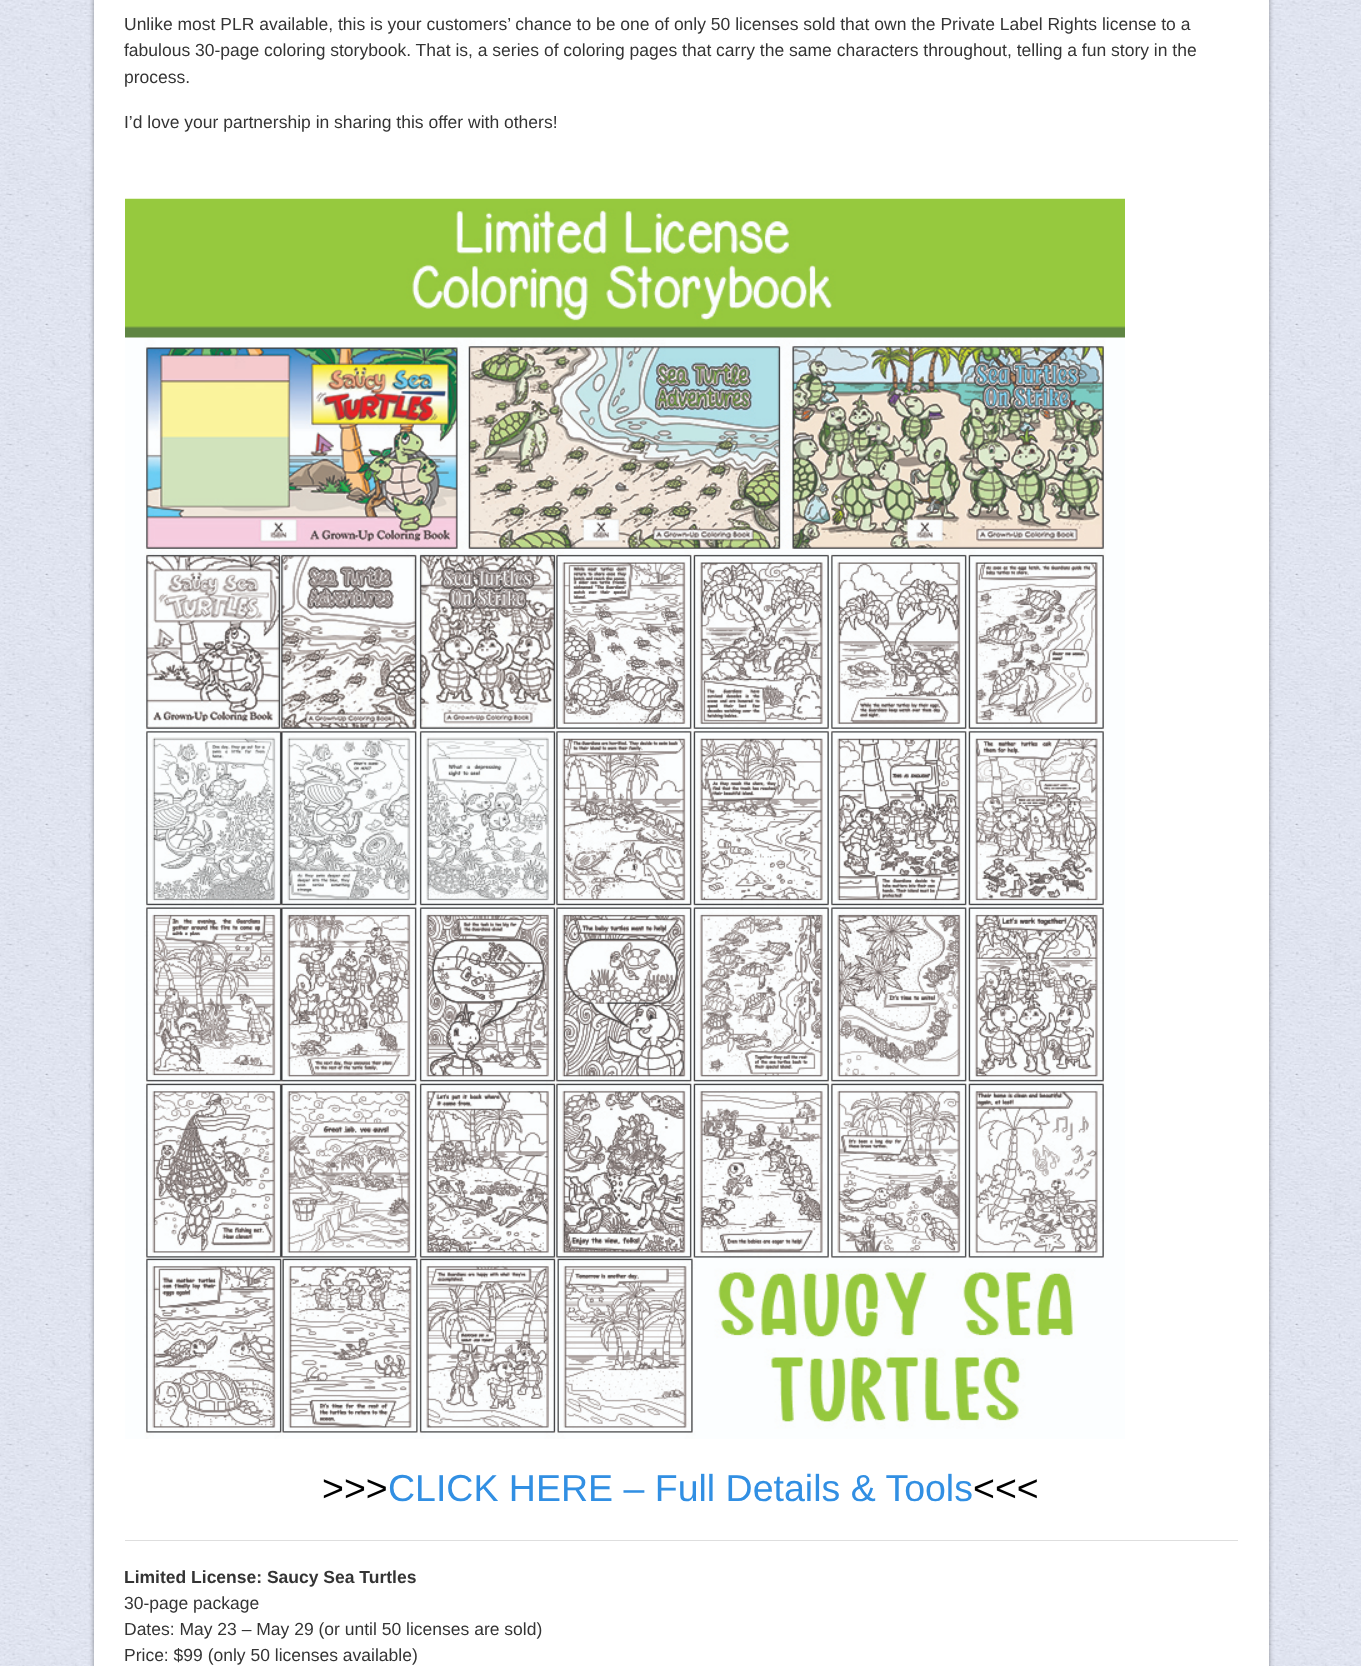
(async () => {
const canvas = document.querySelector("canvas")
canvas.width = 1361
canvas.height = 1666
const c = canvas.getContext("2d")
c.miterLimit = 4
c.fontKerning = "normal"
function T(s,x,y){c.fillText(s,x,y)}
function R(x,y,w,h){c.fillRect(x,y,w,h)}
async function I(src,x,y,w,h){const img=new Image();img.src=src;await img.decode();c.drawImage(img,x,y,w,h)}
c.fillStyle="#fff"
R(0,0,1361,1666)
await I("1.png",0,0,1361,1666)
c.fillStyle="#00000066"
c.filter="blur(2.5px)"
c.beginPath()
c.roundRect(94,-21,1175,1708,13)
c.fill()
c.filter="none"
c.fillStyle="#fff"
R(94,0,1175,1666)
c.font="17.5px Liberation Sans"
c.fillStyle="#343434"
T("Unlike most PLR available, this is your customers’ chance to be one of only 50 licenses sold that own the Private Label Rights license to a",124,30)
T("fabulous 30-page coloring storybook. That is, a series of coloring pages that carry the same characters throughout, telling a fun story in the",124,56)
T("process.",124,83)
T("I’d love your partnership in sharing this offer with others!",124,128)
await I("2.png",125,198,1000,1241)
c.fillStyle="#dedede"
R(125,1540,1113,1)
c.font="37.5px Liberation Sans"
c.fillStyle="#000"
T(">>>",322,1501)
c.fillStyle="#318fe3"
T("CLICK HERE – Full Details & Tools",388,1501)
c.fillStyle="#000"
T("<<<",973,1501)
c.font="bold 17.5px Liberation Sans"
c.fillStyle="#343434"
T("Limited License: Saucy Sea Turtles",124,1583)
c.font="17.5px Liberation Sans"
T("30-page package",124,1609)
T("Dates: May 23 – May 29 (or until 50 licenses are sold)",124,1635)
T("Price: $99 (only 50 licenses available)",124,1661)
})()
